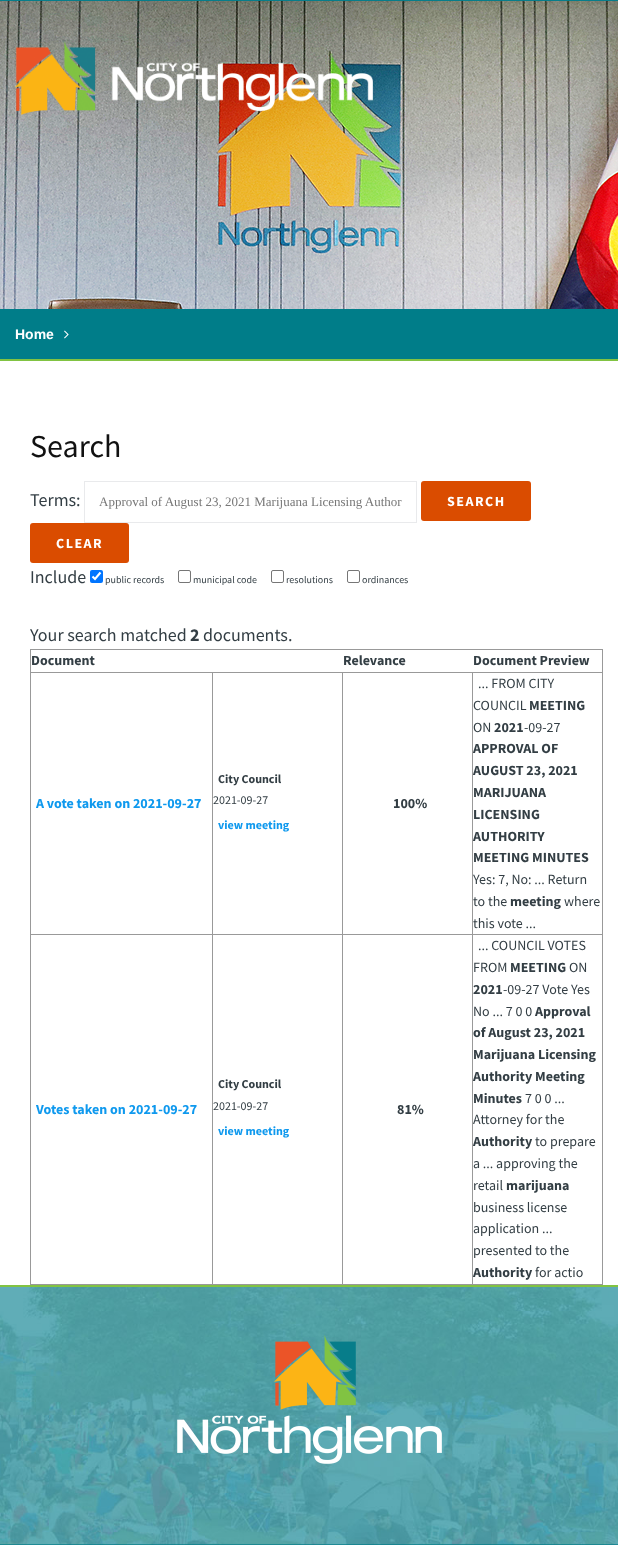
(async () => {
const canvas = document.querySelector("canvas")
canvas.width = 618
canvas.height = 1545
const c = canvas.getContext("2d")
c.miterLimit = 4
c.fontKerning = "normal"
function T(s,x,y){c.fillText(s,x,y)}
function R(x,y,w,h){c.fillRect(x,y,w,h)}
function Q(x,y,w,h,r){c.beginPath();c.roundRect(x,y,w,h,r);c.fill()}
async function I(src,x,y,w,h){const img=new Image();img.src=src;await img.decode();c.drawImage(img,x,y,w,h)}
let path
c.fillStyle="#fff"
R(0,0,618,1545)
c.fillStyle="#077d8a"
R(0,0,618,1)
await I("1.png",0,1,618,308)
await I("2.png",15,41,358,74)
c.fillStyle="#007d89"
R(0,309,618,50)
c.font="bold 14px Liberation Sans"
c.fillStyle="#fff"
T("Home",15,339)
await I("3.png",64,330,5,9)
c.strokeStyle="#81c342"
c.lineWidth=2
c.strokeRect(-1,360,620,926)
c.font="32px Source Sans Pro"
c.fillStyle="#111"
T("Search",30,457)
c.font="18px Source Sans Pro"
c.fillStyle="#333e44"
T("Terms:",30,506)
c.strokeStyle="#e9eaec"
c.lineWidth=1
c.strokeRect(84.5,481.5,332,41)
c.font="13px Liberation Serif"
c.fillStyle="#777"
T("Approval of August 23, 2021 Marijuana Licensing Author",99,506)
c.fillStyle="#da4c00"
Q(421,481,110,40,3)
c.letterSpacing="1.5px"
c.font="bold 14px Source Sans Pro"
c.fillStyle="#fff"
T("SEARCH",447,506)
c.fillStyle="#da4c00"
Q(30,523,99,40,3)
c.fillStyle="#fff"
T("CLEAR",56,548)
c.letterSpacing="0px"
c.font="18px Source Sans Pro"
c.fillStyle="#333e44"
T("Include",30,583)
c.fillStyle="#0075ff"
Q(90,570,13,13,2)
path = new Path2D("M92.5 576.5l2.5 2.5l5.5-6.5")
c.strokeStyle="#fff"
c.lineWidth=2.1
c.stroke(path)
c.font="10px Source Sans Pro"
c.fillStyle="#333e44"
T("public records",105,583)
c.beginPath()
c.roundRect(178.5,570.5,12,12,1.5)
c.strokeStyle="#767676"
c.lineWidth=1
c.stroke()
T("municipal code",193,583)
c.beginPath()
c.roundRect(271.5,570.5,12,12,1.5)
c.stroke()
T("resolutions",286,583)
c.beginPath()
c.roundRect(347.5,570.5,12,12,1.5)
c.stroke()
T("ordinances",362,583)
c.font="18px Source Sans Pro"
T("Your search matched",30,641)
c.font="bold 18px Source Sans Pro"
T("2",190,641)
c.font="18px Source Sans Pro"
T("documents.",203,641)
c.fillStyle="#999"
R(30,649,573,1)
R(602,649,1,636)
R(30,1284,573,1)
R(30,649,1,636)
c.font="bold 14px Source Sans Pro"
c.fillStyle="#333e44"
T("Document",31,665)
T("Relevance",343,665)
T("Document Preview",473,665)
c.fillStyle="#999"
R(472,672,131,1)
R(472,934,131,1)
R(472,934,1,351)
R(342,934,131,1)
R(472,672,1,263)
R(342,672,131,1)
R(342,934,1,351)
R(212,934,131,1)
R(342,672,1,263)
R(212,672,131,1)
R(212,934,1,351)
R(30,934,183,1)
R(212,672,1,263)
R(30,672,183,1)
c.fillStyle="#0f99ee"
T("A vote taken on 2021-09-27",36,808)
c.font="bold 12px Source Sans Pro"
c.fillStyle="#333e44"
T("City Council",218,783)
c.font="12px Source Sans Pro"
T("2021-09-27",213,804)
c.font="bold 12px Source Sans Pro"
c.fillStyle="#0f99ee"
T("view meeting",218,829)
c.font="bold 14px Source Sans Pro"
c.fillStyle="#333e44"
T("100%",393,808)
c.font="14px Source Sans Pro"
T("... FROM CITY",478,688)
T("COUNCIL",473,710)
c.font="bold 14px Source Sans Pro"
T("MEETING",529,710)
c.font="14px Source Sans Pro"
T("ON",473,732)
c.font="bold 14px Source Sans Pro"
T("2021",494,732)
c.font="14px Source Sans Pro"
T("-09-27",524,732)
c.font="bold 14px Source Sans Pro"
T("APPROVAL OF",473,753)
T("AUGUST 23, 2021",473,775)
T("MARIJUANA",473,797)
T("LICENSING",473,819)
T("AUTHORITY",473,841)
T("MEETING MINUTES",473,862)
c.font="14px Source Sans Pro"
T("Yes: 7, No: ... Return",473,884)
T("to the",473,906)
c.font="bold 14px Source Sans Pro"
T("meeting",510,906)
c.font="14px Source Sans Pro"
T("where",564,906)
T("this vote ...",473,928)
c.font="bold 14px Source Sans Pro"
c.fillStyle="#0f99ee"
T("Votes taken on 2021-09-27",36,1114)
c.font="bold 12px Source Sans Pro"
c.fillStyle="#333e44"
T("City Council",218,1088)
c.font="12px Source Sans Pro"
T("2021-09-27",213,1110)
c.font="bold 12px Source Sans Pro"
c.fillStyle="#0f99ee"
T("view meeting",218,1135)
c.font="bold 14px Source Sans Pro"
c.fillStyle="#333e44"
T("81%",397,1114)
c.font="14px Source Sans Pro"
T("... COUNCIL VOTES",478,950)
T("FROM",473,972)
c.font="bold 14px Source Sans Pro"
T("MEETING",510,972)
c.font="14px Source Sans Pro"
T("ON",569,972)
c.font="bold 14px Source Sans Pro"
T("2021",473,994)
c.font="14px Source Sans Pro"
T("-09-27 Vote Yes",503,994)
T("No ... 7 0 0",473,1016)
c.font="bold 14px Source Sans Pro"
T("Approval",535,1016)
T("of August 23, 2021",473,1037)
T("Marijuana Licensing",473,1059)
T("Authority Meeting",473,1081)
T("Minutes",473,1103)
c.font="14px Source Sans Pro"
T("7 0 0 ...",525,1103)
T("Attorney for the",473,1124)
c.font="bold 14px Source Sans Pro"
T("Authority",473,1146)
c.font="14px Source Sans Pro"
T("to prepare",535,1146)
T("a ... approving the",473,1168)
T("retail",473,1190)
c.font="bold 14px Source Sans Pro"
T("marijuana",506,1190)
c.font="14px Source Sans Pro"
T("business license",473,1212)
T("application ...",473,1233)
T("presented to the",473,1255)
c.font="bold 14px Source Sans Pro"
T("Authority",473,1277)
c.font="14px Source Sans Pro"
T("for actio",535,1277)
await I("4.png",0,1287,618,258)
await I("5.png",177,1335,265,129)
c.fillStyle="#077d8ab3"
R(0,1544,618,1)
})()
